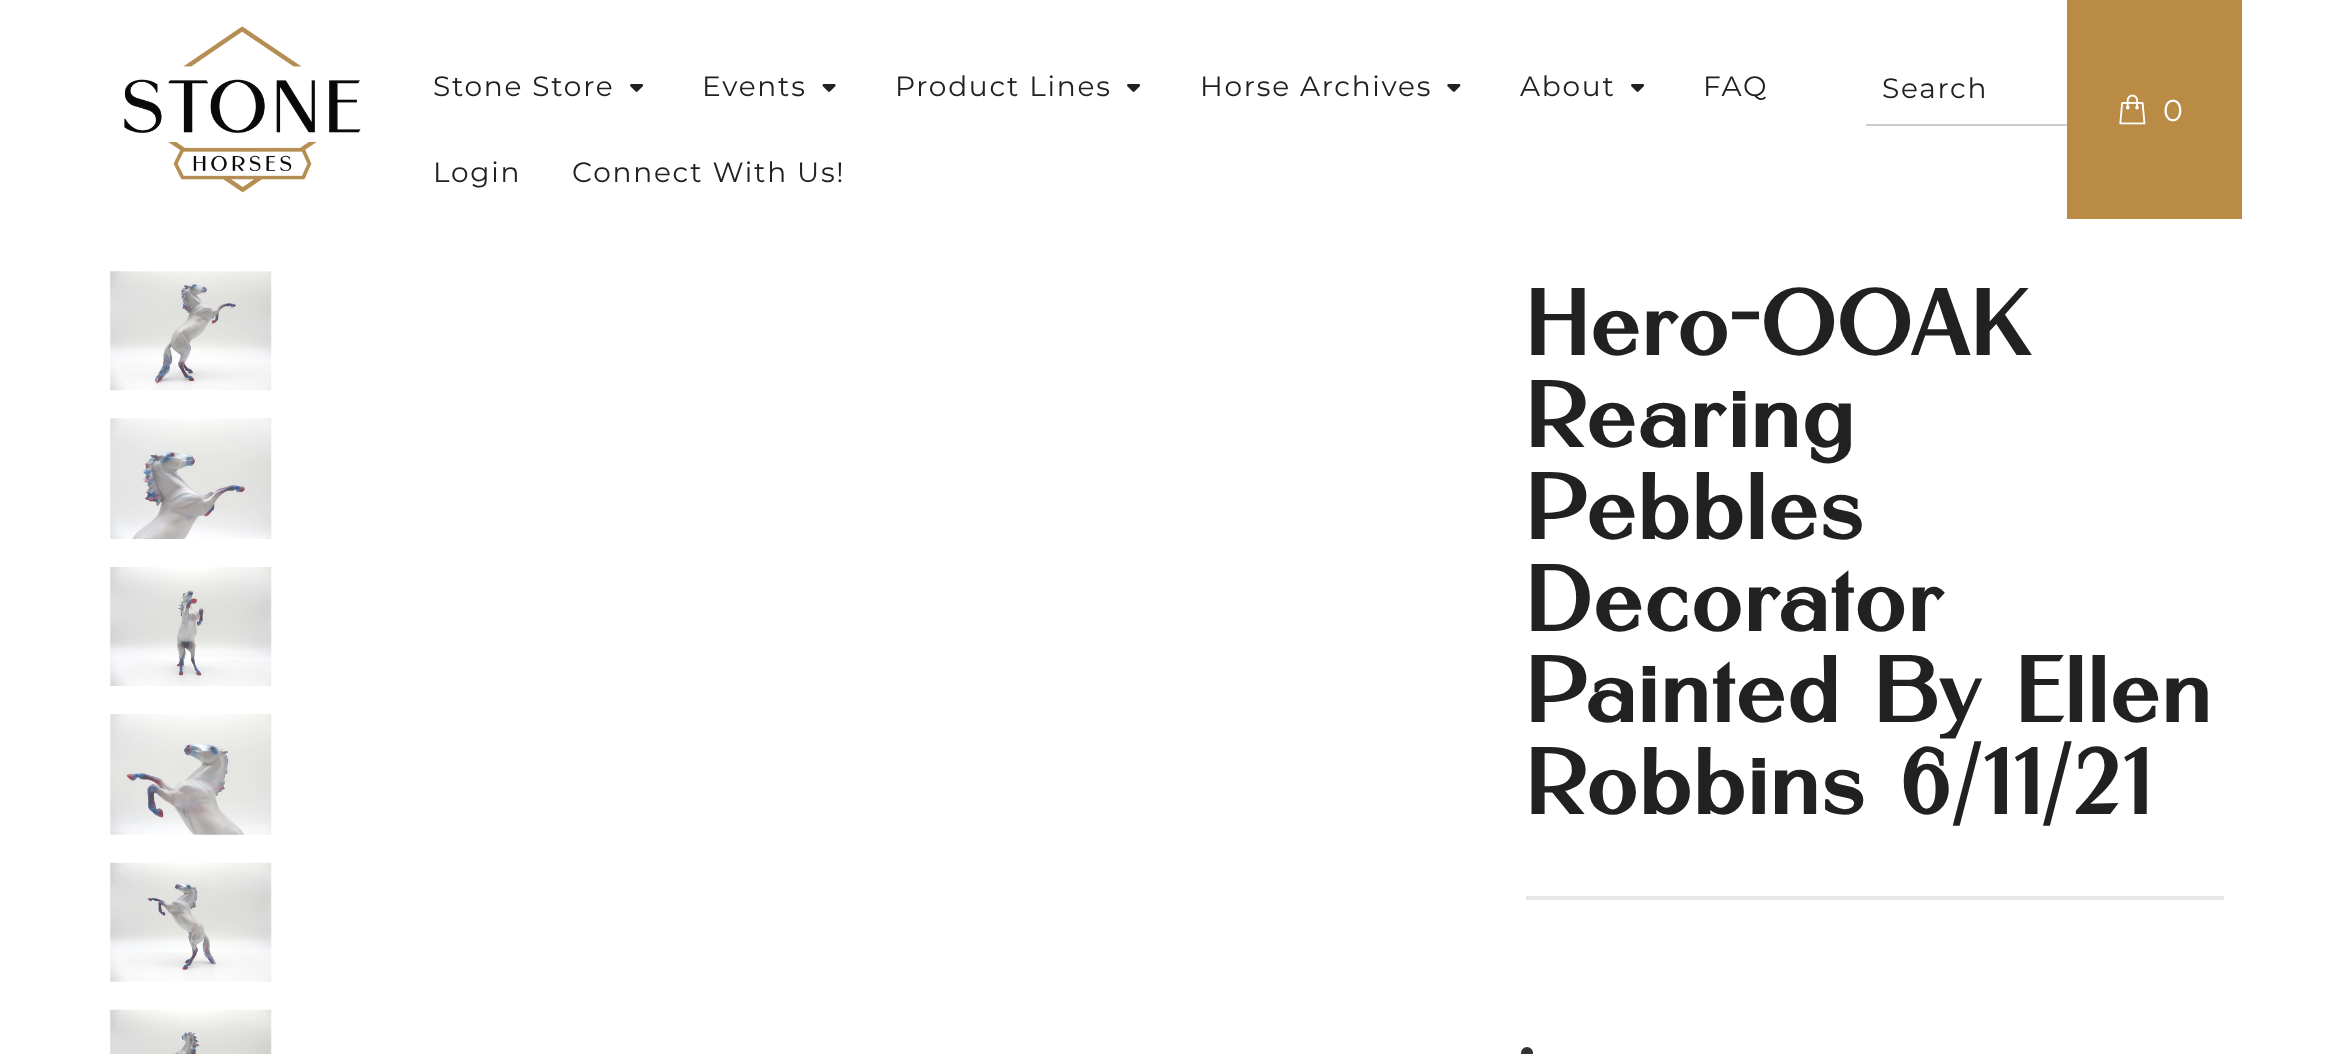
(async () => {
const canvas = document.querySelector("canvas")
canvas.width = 2328
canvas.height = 1054
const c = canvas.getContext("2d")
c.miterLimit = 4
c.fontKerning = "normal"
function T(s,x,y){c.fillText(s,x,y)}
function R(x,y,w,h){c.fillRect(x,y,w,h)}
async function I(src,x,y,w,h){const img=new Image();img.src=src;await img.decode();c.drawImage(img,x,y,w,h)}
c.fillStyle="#fff"
R(0,0,2328,1054)
await I("1.png",124,26,237,167)
c.letterSpacing="1.75px"
c.font="28px Montserrat"
c.fillStyle="#212121"
T("Stone Store",433,96)
await I("2.png",630,84,14,8)
T("Events",702,96)
await I("3.png",822,84,14,8)
T("Product Lines",895,96)
await I("2.png",1127,84,14,8)
T("Horse Archives",1200,96)
await I("4.png",1447,84,14,8)
T("About",1520,96)
await I("2.png",1631,84,14,8)
T("FAQ",1703,96)
T("Login",433,182)
T("Connect With Us!",572,182)
c.fillStyle="#ccc"
R(1866,124,201,2)
c.fillStyle="#212121"
T("Search",1882,98)
c.fillStyle="#b98b45"
R(2067,0,175,219)
await I("5.png",2119,94,27,31)
c.font="30px Montserrat"
c.fillStyle="#fff"
T("0",2163,121)
await I("6.png",110,271,162,120)
await I("7.png",110,418,162,121)
await I("8.png",110,567,162,119)
await I("9.png",110,714,162,121)
await I("10.png",110,862,162,120)
await I("11.png",110,1009,162,45)
c.letterSpacing="3.5px"
c.font="bold 92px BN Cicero"
c.fillStyle="#212121"
T("Hero-OOAK",1526,355)
T("Rearing",1526,447)
T("Pebbles",1526,539)
T("Decorator",1526,631)
T("Painted By Ellen",1526,722)
T("Robbins 6/11/21",1526,814)
c.fillStyle="#e6e6e6"
R(1526,896,698,4)
c.fillStyle="#333"
c.beginPath()
c.arc(1527,1053,6,0,7)
c.fill()
})()
